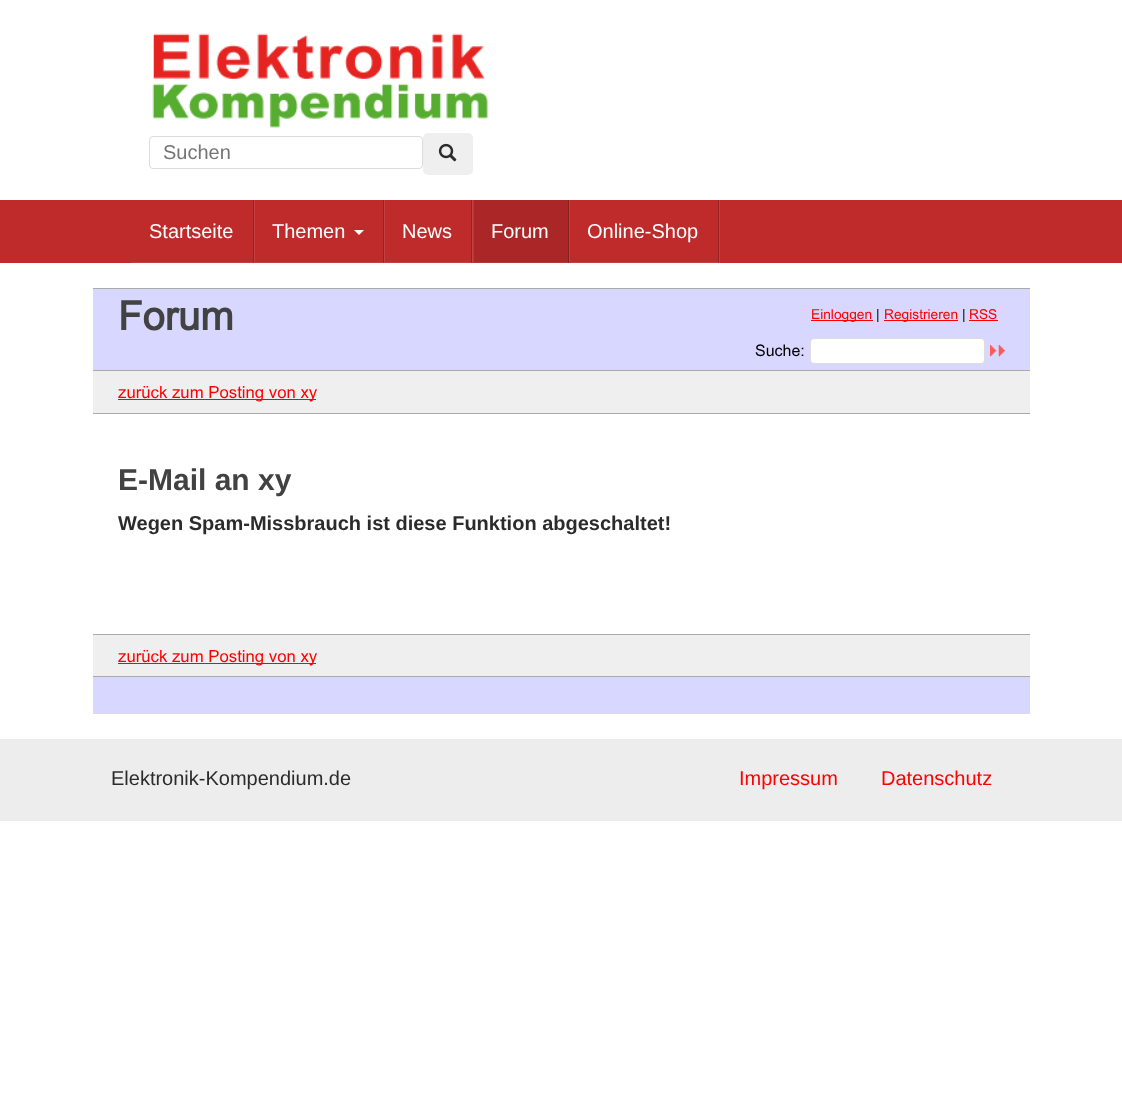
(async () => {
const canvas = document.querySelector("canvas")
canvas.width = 1122
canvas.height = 1096
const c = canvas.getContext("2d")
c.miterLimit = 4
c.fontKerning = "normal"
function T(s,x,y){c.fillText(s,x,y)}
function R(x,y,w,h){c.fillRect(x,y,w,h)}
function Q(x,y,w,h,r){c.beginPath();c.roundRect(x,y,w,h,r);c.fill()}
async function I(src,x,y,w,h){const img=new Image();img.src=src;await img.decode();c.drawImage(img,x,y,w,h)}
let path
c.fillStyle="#fff"
R(0,0,1122,1096)
await I("1.png",152,33,336,95)
c.beginPath()
c.roundRect(149.5,136.5,273,32,3.5)
c.strokeStyle="#ddd"
c.stroke()
c.font="20px Liberation Sans"
c.fillStyle="#757575"
T("Suchen",163,159)
c.fillStyle="#efefef"
Q(423,133,50,42,5)
await I("2.png",438,143,19,19)
c.fillStyle="#bf2b2b"
R(0,200,1122,63)
c.fillStyle="#c54040"
path = new Path2D("M131 262v1h124v-63h-1v62z")
c.fill(path)
c.fillStyle="#00000033"
R(253,200,1,63)
c.fillStyle="#fff"
T("Startseite",149,238)
c.fillStyle="#c54040"
path = new Path2D("M255 262v1h130v-63h-1v62z")
c.fill(path)
c.fillStyle="#00000033"
R(383,200,1,63)
c.fillStyle="#fff"
T("Themen",272,238)
path = new Path2D("M354 230h10l-5 5z")
c.fill(path)
c.fillStyle="#c54040"
path = new Path2D("M385 262v1h89v-63h-2v62z")
c.fill(path)
c.fillStyle="#00000033"
R(471,200,1,63)
c.fillStyle="#fff"
T("News",402,238)
c.fillStyle="#c54040"
path = new Path2D("M474 262v1h96v-63h-1v62z")
c.fill(path)
c.fillStyle="#0000001a"
R(473,200,96,63)
c.fillStyle="#00000033"
R(568,200,1,63)
c.fillStyle="#fff"
T("Forum",491,238)
c.fillStyle="#c54040"
path = new Path2D("M570 262v1h150v-63h-1v62z")
c.fill(path)
c.fillStyle="#00000033"
R(718,200,1,63)
c.fillStyle="#fff"
T("Online-Shop",587,238)
c.fillStyle="#aaa"
R(93,288,937,1)
c.fillStyle="#d7d7ff"
R(93,289,937,81)
c.font="bold 40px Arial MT"
c.fillStyle="#424242"
T("Forum",118,330)
c.fillStyle="#f00"
R(811,320,62,1)
c.font="13.75px Arial MT"
T("Einloggen",811,319)
c.fillStyle="#000"
T("|",876,319)
c.fillStyle="#f00"
R(884,320,74,1)
T("Registrieren",884,319)
c.fillStyle="#000"
T("|",962,319)
c.fillStyle="#f00"
T("RSS",969,319)
R(969,320,29,1)
c.font="16px Arial MT"
c.fillStyle="#000"
T("Suche:",755,356)
c.fillStyle="#fff"
c.beginPath()
c.roundRect(810.5,338.5,174,25,3.5)
c.fill()
c.stroke()
await I("3.png",990,345,15,12)
c.fillStyle="#efefef"
R(93,371,937,42)
c.fillStyle="#aaa"
R(93,370,937,1)
c.fillStyle="#f00"
R(118,399,198,1)
c.font="16.75px Arial MT"
T("zurück zum Posting von xy",118,398)
c.fillStyle="#aaa"
R(93,413,937,1)
c.font="bold 30px Liberation Sans"
c.fillStyle="#424242"
T("E-Mail an xy",118,490)
c.font="bold 20px Liberation Sans"
c.fillStyle="#2b2b2b"
T("Wegen Spam-Missbrauch ist diese Funktion abgeschaltet!",118,530)
c.fillStyle="#efefef"
R(93,635,937,41)
c.fillStyle="#aaa"
R(93,634,937,1)
c.fillStyle="#f00"
R(118,663,198,1)
c.font="16.75px Arial MT"
T("zurück zum Posting von xy",118,662)
c.fillStyle="#d7d7ff"
R(93,677,937,37)
c.fillStyle="#aaa"
R(93,676,937,1)
c.fillStyle="#ededed"
R(0,739,1122,82)
c.font="20px Liberation Sans"
c.fillStyle="#2b2b2b"
T("Elektronik-Kompendium.de",111,785)
c.fillStyle="#f00"
T("Impressum",739,785)
T("Datenschutz",881,785)
})()
